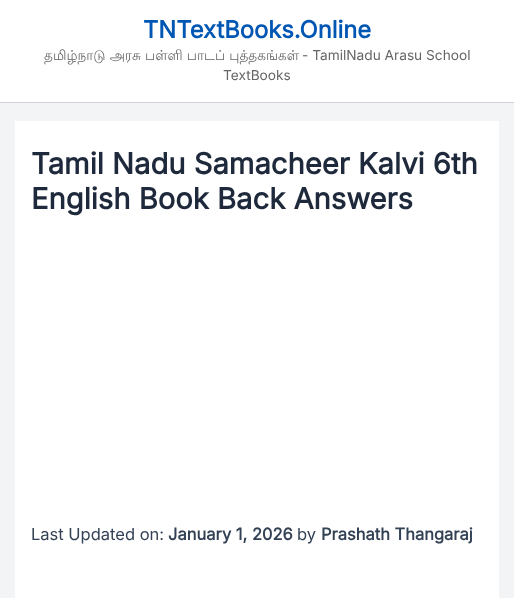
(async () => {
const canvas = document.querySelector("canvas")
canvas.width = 514
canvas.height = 598
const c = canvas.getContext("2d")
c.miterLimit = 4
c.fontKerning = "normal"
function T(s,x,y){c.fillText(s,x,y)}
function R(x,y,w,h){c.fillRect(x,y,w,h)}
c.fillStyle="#f3f4f6"
R(0,0,514,598)
c.fillStyle="#fff"
R(0,0,514,102)
c.fillStyle="#d1d5db"
R(0,102,514,1)
c.font="bold 23.75px Inter"
c.fillStyle="#0056b3"
T("TNTextBooks.Online",143,38)
c.font="13.7px Lohit Tamil"
c.fillStyle="#666"
T("தமிழ்நாடு அரசு பள்ளி பாடப் புத்தகங்கள்",44,60)
c.font="13.7px Inter"
T("- TamilNadu Arasu School",302,60)
T("TextBooks",223,80)
c.fillStyle="#fff"
R(15,121,484,477)
c.font="bold 29.2px Inter"
c.fillStyle="#1e293b"
T("Tamil Nadu Samacheer Kalvi 6th",31,174)
T("English Book Back Answers",31,209)
c.font="16.5px Inter"
c.fillStyle="#334155"
T("Last Updated on:",31,540)
c.font="bold 16.5px Inter"
T("January 1, 2026",168,540)
c.font="16.5px Inter"
T("by",297,540)
c.font="bold 16.5px Inter"
T("Prashath Thangaraj",321,540)
})()
